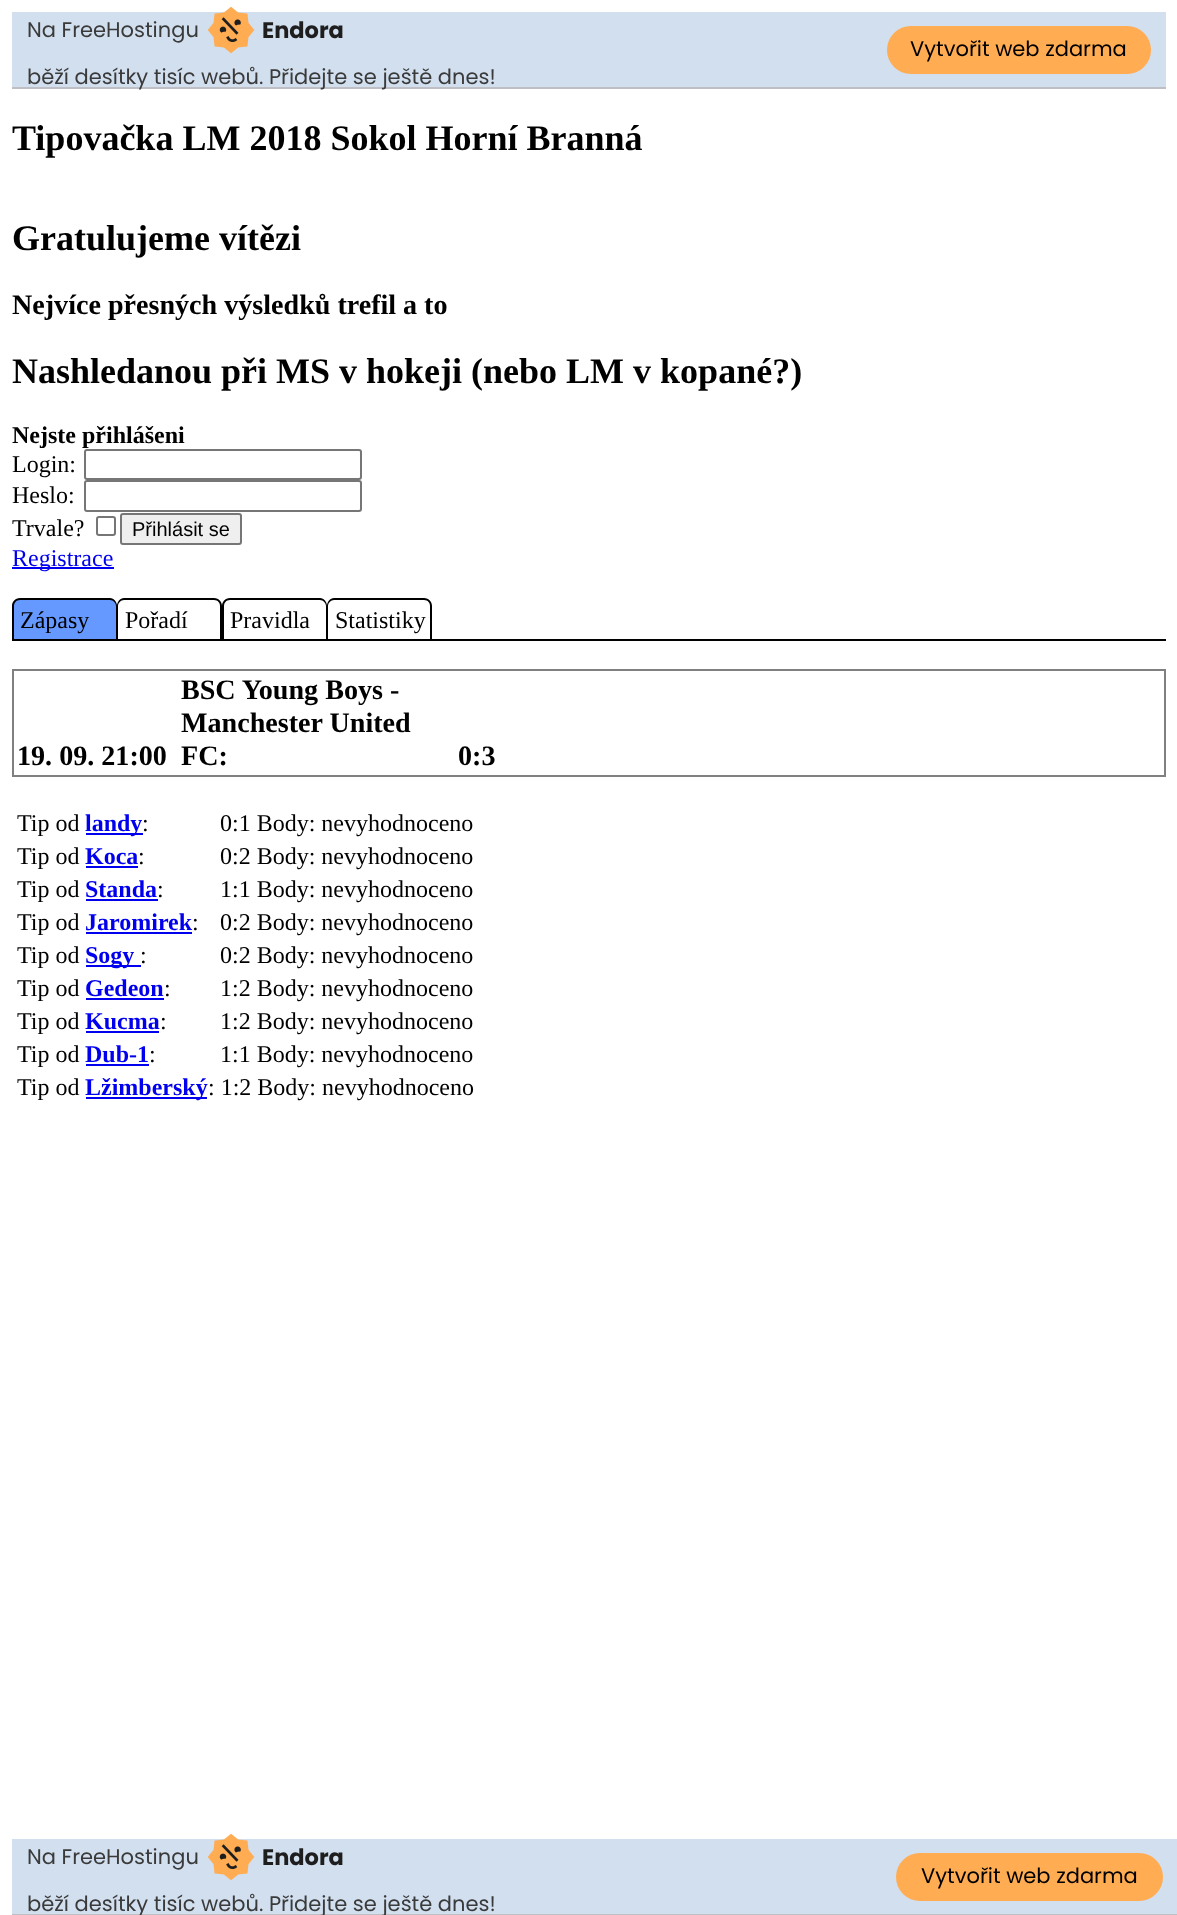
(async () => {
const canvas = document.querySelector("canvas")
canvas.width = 1177
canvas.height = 1915
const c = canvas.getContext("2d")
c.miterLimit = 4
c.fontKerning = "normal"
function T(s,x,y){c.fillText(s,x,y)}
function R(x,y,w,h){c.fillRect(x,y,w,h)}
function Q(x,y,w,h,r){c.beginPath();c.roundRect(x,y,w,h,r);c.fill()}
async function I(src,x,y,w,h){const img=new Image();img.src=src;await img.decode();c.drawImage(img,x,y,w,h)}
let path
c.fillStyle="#fff"
R(0,0,1177,1915)
c.fillStyle="#d2dfef"
R(12,12,1154,75)
c.fillStyle="#bebfc4"
R(12,87,1154,2)
c.font="21px Poppins"
c.fillStyle="#3a3a3a"
T("Na FreeHostingu",27,37)
await I("1.png",207,6,48,48)
c.font="bold 22.5px Poppins"
c.fillStyle="#1e1e1e"
T("Endora",262,38)
c.font="21px Poppins"
c.fillStyle="#3a3a3a"
T("běží desítky tisíc webů. Přidejte se ještě dnes!",27,84)
c.fillStyle="#ffac52"
Q(887,26,264,48,24)
c.fillStyle="#000"
T("Vytvořit web zdarma",910,56)
c.font="bold 36px Liberation Serif"
T("Tipovačka LM 2018 Sokol Horní Branná",12,150)
T("Gratulujeme vítězi",12,250)
c.font="bold 28.1px Liberation Serif"
T("Nejvíce přesných výsledků trefil",12,314)
T("a to",403,314)
c.font="bold 36px Liberation Serif"
T("Nashledanou při MS v hokeji (nebo LM v kopané?)",12,383)
c.font="bold 24px Liberation Serif"
T("Nejste přihlášeni",12,443)
c.font="24px Liberation Serif"
T("Login:",12,472)
c.beginPath()
c.roundRect(85,450,276,29,2)
c.strokeStyle="#767676"
c.lineWidth=2
c.stroke()
T("Heslo:",12,503)
c.beginPath()
c.roundRect(85,481,276,30,2)
c.stroke()
T("Trvale?",12,536)
c.beginPath()
c.roundRect(97,517,18,18,2)
c.stroke()
c.fillStyle="#efefef"
c.beginPath()
c.roundRect(121,514,120,30,2)
c.fill()
c.stroke()
c.font="20px Liberation Sans"
c.fillStyle="#000"
T("Přihlásit se",132,536)
c.fillStyle="#00e"
R(12,567,102,2)
c.font="24px Liberation Serif"
T("Registrace",12,566)
c.fillStyle="#000"
R(12,639,1154,2)
c.fillStyle="#69f"
c.beginPath()
c.roundRect(12,599,105,40,[8,8,0,0])
c.fill()
c.fillStyle="#000"
path = new Path2D("M20 598h90c4 0 7 4 7 8v33h-105v-33c0-4 3-8 8-8zm0 2h90c3 0 6 3 6 6v33h-102v-33c0-3 2-6 6-6z")
c.fill(path,"evenodd")
T("Zápasy",20,628)
path = new Path2D("M124 598h90c5 0 8 4 8 8v33h-105v-33c0-4 3-8 7-8zm0 2h90c4 0 6 3 6 6v33h-102v-33c0-3 3-6 6-6z")
c.fill(path,"evenodd")
T("Pořadí",125,628)
path = new Path2D("M230 598h90c4 0 7 4 7 8v33h-105v-33c0-4 3-8 8-8zm0 2h90c3 0 6 3 6 6v33h-102v-33c0-3 2-6 6-6z")
c.fill(path,"evenodd")
T("Pravidla",230,628)
path = new Path2D("M334 598h90c5 0 8 4 8 8v33h-105v-33c0-4 3-8 7-8zm0 2h90c4 0 6 3 6 6v33h-102v-33c0-3 3-6 6-6z")
c.fill(path,"evenodd")
T("Statistiky",335,628)
c.strokeStyle="#808080"
c.strokeRect(13,670,1152,106)
c.font="bold 28.1px Liberation Serif"
T("19. 09. 21:00",17,765)
T("BSC Young Boys -",181,699)
T("Manchester United",181,732)
T("FC:",181,765)
T("0:3",458,765)
c.font="24px Liberation Serif"
T("Tip od",17,831)
c.fillStyle="#00e"
R(86,833,57,2)
c.font="bold 24px Liberation Serif"
T("landy",85,831)
c.font="24px Liberation Serif"
c.fillStyle="#000"
T(":",142,831)
T("0:1 Body: nevyhodnoceno",220,831)
T("Tip od",17,864)
c.font="bold 24px Liberation Serif"
c.fillStyle="#00e"
T("Koca",85,864)
R(86,866,52,2)
c.font="24px Liberation Serif"
c.fillStyle="#000"
T(":",138,864)
T("0:2 Body: nevyhodnoceno",220,864)
T("Tip od",17,897)
c.font="bold 24px Liberation Serif"
c.fillStyle="#00e"
T("Standa",85,897)
R(86,899,72,2)
c.font="24px Liberation Serif"
c.fillStyle="#000"
T(":",157,897)
T("1:1 Body: nevyhodnoceno",220,897)
T("Tip od",17,930)
c.font="bold 24px Liberation Serif"
c.fillStyle="#00e"
T("Jaromirek",85,930)
R(86,932,106,2)
c.font="24px Liberation Serif"
c.fillStyle="#000"
T(":",192,930)
T("0:2 Body: nevyhodnoceno",220,930)
T("Tip od",17,963)
c.fillStyle="#00e"
R(86,965,55,2)
c.font="bold 24px Liberation Serif"
T("Sogy",85,963)
c.font="24px Liberation Serif"
c.fillStyle="#000"
T(":",140,963)
T("0:2 Body: nevyhodnoceno",220,963)
T("Tip od",17,996)
c.font="bold 24px Liberation Serif"
c.fillStyle="#00e"
T("Gedeon",85,996)
R(86,998,78,2)
c.font="24px Liberation Serif"
c.fillStyle="#000"
T(":",164,996)
T("1:2 Body: nevyhodnoceno",220,996)
T("Tip od",17,1029)
c.font="bold 24px Liberation Serif"
c.fillStyle="#00e"
T("Kucma",85,1029)
R(86,1031,73,2)
c.font="24px Liberation Serif"
c.fillStyle="#000"
T(":",160,1029)
T("1:2 Body: nevyhodnoceno",220,1029)
T("Tip od",17,1062)
c.font="bold 24px Liberation Serif"
c.fillStyle="#00e"
T("Dub-1",85,1062)
R(86,1064,63,2)
c.font="24px Liberation Serif"
c.fillStyle="#000"
T(":",149,1062)
T("1:1 Body: nevyhodnoceno",220,1062)
T("Tip od",17,1095)
c.fillStyle="#00e"
R(86,1097,121,2)
c.font="bold 24px Liberation Serif"
T("Lžimberský",85,1095)
c.font="24px Liberation Serif"
c.fillStyle="#000"
T(": 1:2 Body: nevyhodnoceno",208,1095)
c.fillStyle="#d2dfef"
R(12,1839,1165,75)
c.fillStyle="#bebfc4"
R(12,1914,1165,1)
c.font="21px Poppins"
c.fillStyle="#3a3a3a"
T("Na FreeHostingu",27,1864)
await I("1.png",207,1833,48,48)
c.font="bold 22.5px Poppins"
c.fillStyle="#1e1e1e"
T("Endora",262,1865)
c.font="21px Poppins"
c.fillStyle="#3a3a3a"
T("běží desítky tisíc webů. Přidejte se ještě dnes!",27,1911)
c.fillStyle="#ffac52"
Q(896,1853,267,48,24)
c.fillStyle="#000"
T("Vytvořit web zdarma",921,1883)
})()
